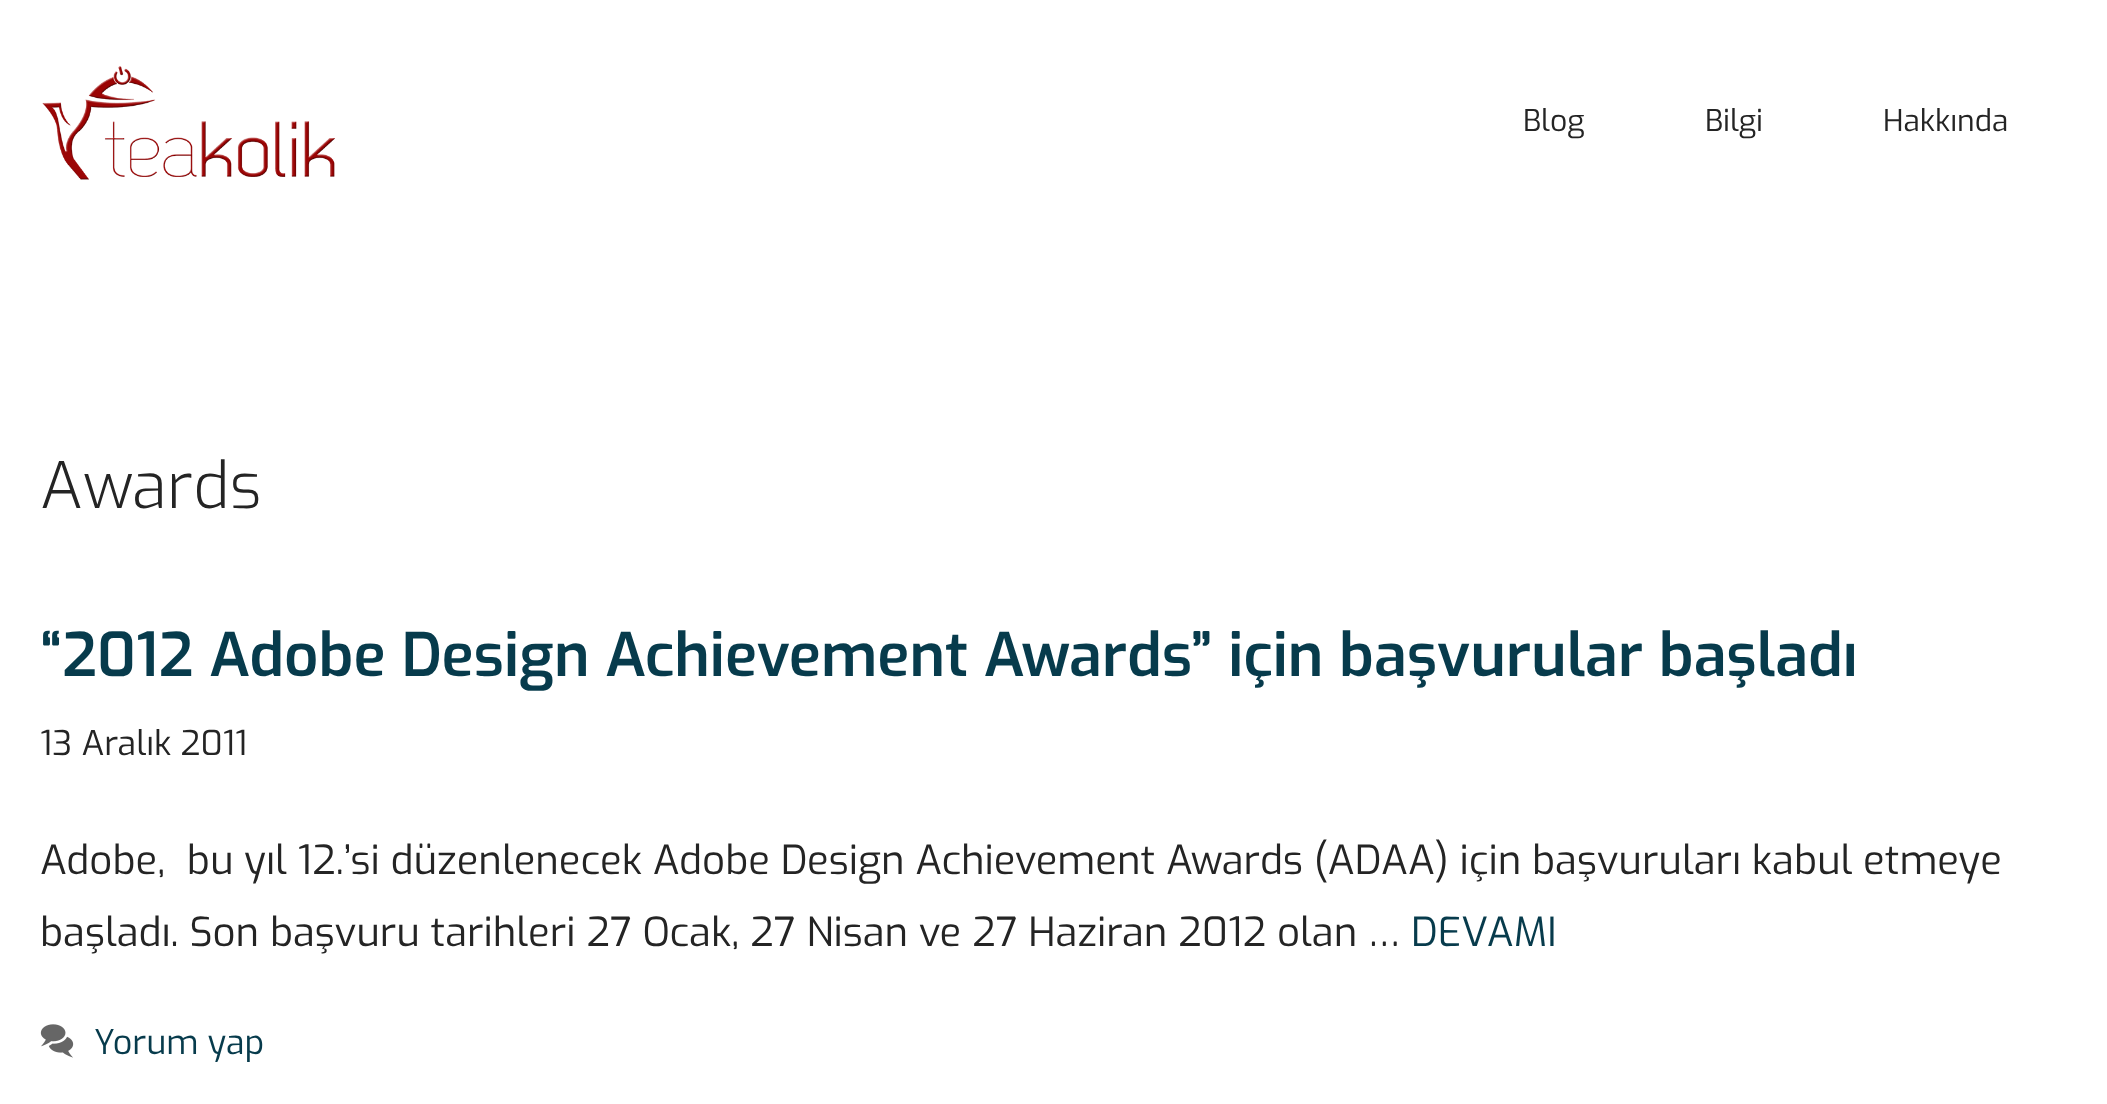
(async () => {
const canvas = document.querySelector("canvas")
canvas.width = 2107
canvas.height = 1104
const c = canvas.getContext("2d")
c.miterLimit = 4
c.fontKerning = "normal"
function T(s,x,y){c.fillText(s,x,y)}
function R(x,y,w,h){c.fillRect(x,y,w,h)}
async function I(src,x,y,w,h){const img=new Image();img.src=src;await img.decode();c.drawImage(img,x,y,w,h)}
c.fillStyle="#fff"
R(0,0,2107,1104)
await I("1.png",42,66,293,114)
c.font="30px Exo"
c.fillStyle="#242424"
T("Blog",1523,131)
T("Bilgi",1705,131)
T("Hakkında",1883,131)
c.font="300 64px Exo"
T("Awards",40,508)
c.font="600 60px Exo"
c.fillStyle="#073b4c"
T("“2012 Adobe Design Achievement Awards” için başvurular başladı",40,676)
c.font="34px Exo"
c.fillStyle="#242424"
T("13 Aralık 2011",40,755)
c.font="40px Exo"
T("Adobe,  bu yıl 12.’si düzenlenecek Adobe Design Achievement Awards (ADAA) için başvuruları kabul etmeye",40,874)
T("başladı. Son başvuru tarihleri 27 Ocak, 27 Nisan ve 27 Haziran 2012 olan …",40,946)
c.fillStyle="#073b4c"
T("DEVAMI",1411,946)
await I("2.png",40,1024,34,34)
c.font="34px Exo"
T("Yorum yap",94,1054)
})()
